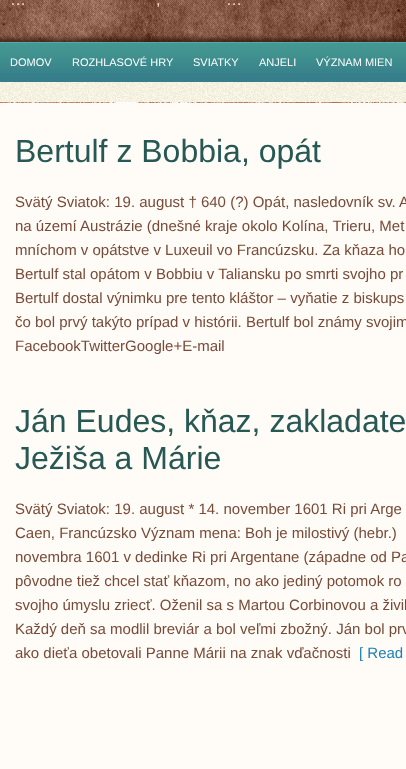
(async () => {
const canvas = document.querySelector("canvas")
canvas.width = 406
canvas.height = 769
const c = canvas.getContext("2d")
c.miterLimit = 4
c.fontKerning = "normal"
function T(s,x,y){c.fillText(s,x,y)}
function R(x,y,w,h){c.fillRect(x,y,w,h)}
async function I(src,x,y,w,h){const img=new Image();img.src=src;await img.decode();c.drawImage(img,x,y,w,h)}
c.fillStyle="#fff"
R(0,0,406,769)
await I("1.png",0,82,406,20)
await I("2.png",0,0,406,42)
c.font="16px Liberation Sans"
c.fillStyle="#ffd9bf"
T("…",10,5)
T(",",156,5)
T("…",226,5)
c.fillStyle="#367e8a"
R(0,73,406,9)
await I("3.png",0,42,406,31)
c.font="11px Liberation Sans"
c.fillStyle="#fff"
T("DOMOV",10,66)
T("ROZHLASOVÉ HRY",72,66)
T("SVIATKY",193,66)
T("ANJELI",259,66)
T("VÝZNAM MIEN",316,66)
await I("4.png",0,102,406,1)
c.fillStyle="#fffbf7"
R(0,103,406,666)
c.font="32px Liberation Sans"
c.fillStyle="#275854"
T("Bertulf z Bobbia, opát",15,162)
c.font="15px Liberation Sans"
c.fillStyle="#774b38"
T("Svätý Sviatok: 19. august † 640 (?) Opát, nasledovník sv. A",15,207)
T("na území Austrázie (dnešné kraje okolo Kolína, Trieru, Met",15,231)
T("mníchom v opátstve v Luxeuil vo Francúzsku. Za kňaza ho",15,255)
T("Bertulf stal opátom v Bobbiu v Taliansku po smrti svojho pr",15,279)
T("Bertulf dostal výnimku pre tento kláštor – vyňatie z biskups",15,303)
T("čo bol prvý takýto prípad v histórii. Bertulf bol známy svojim",15,327)
T("FacebookTwitterGoogle+E-mail",15,351)
c.font="32px Liberation Sans"
c.fillStyle="#275854"
T("Ján Eudes, kňaz, zakladate",15,432)
T("Ježiša a Márie",15,469)
c.font="15px Liberation Sans"
c.fillStyle="#774b38"
T("Svätý Sviatok: 19. august * 14. november 1601 Ri pri Arge",15,514)
T("Caen, Francúzsko Význam mena: Boh je milostivý (hebr.)",15,538)
T("novembra 1601 v dedinke Ri pri Argentane (západne od Pa",15,562)
T("pôvodne tiež chcel stať kňazom, no ako jediný potomok ro",15,586)
T("svojho úmyslu zriecť. Oženil sa s Martou Corbinovou a živil",15,610)
T("Každý deň sa modlil breviár a bol veľmi zbožný. Ján bol prv",15,634)
T("ako dieťa obetovali Panne Márii na znak vďačnosti",15,658)
c.fillStyle="#1d81b6"
T("[ Read",359,658)
})()
